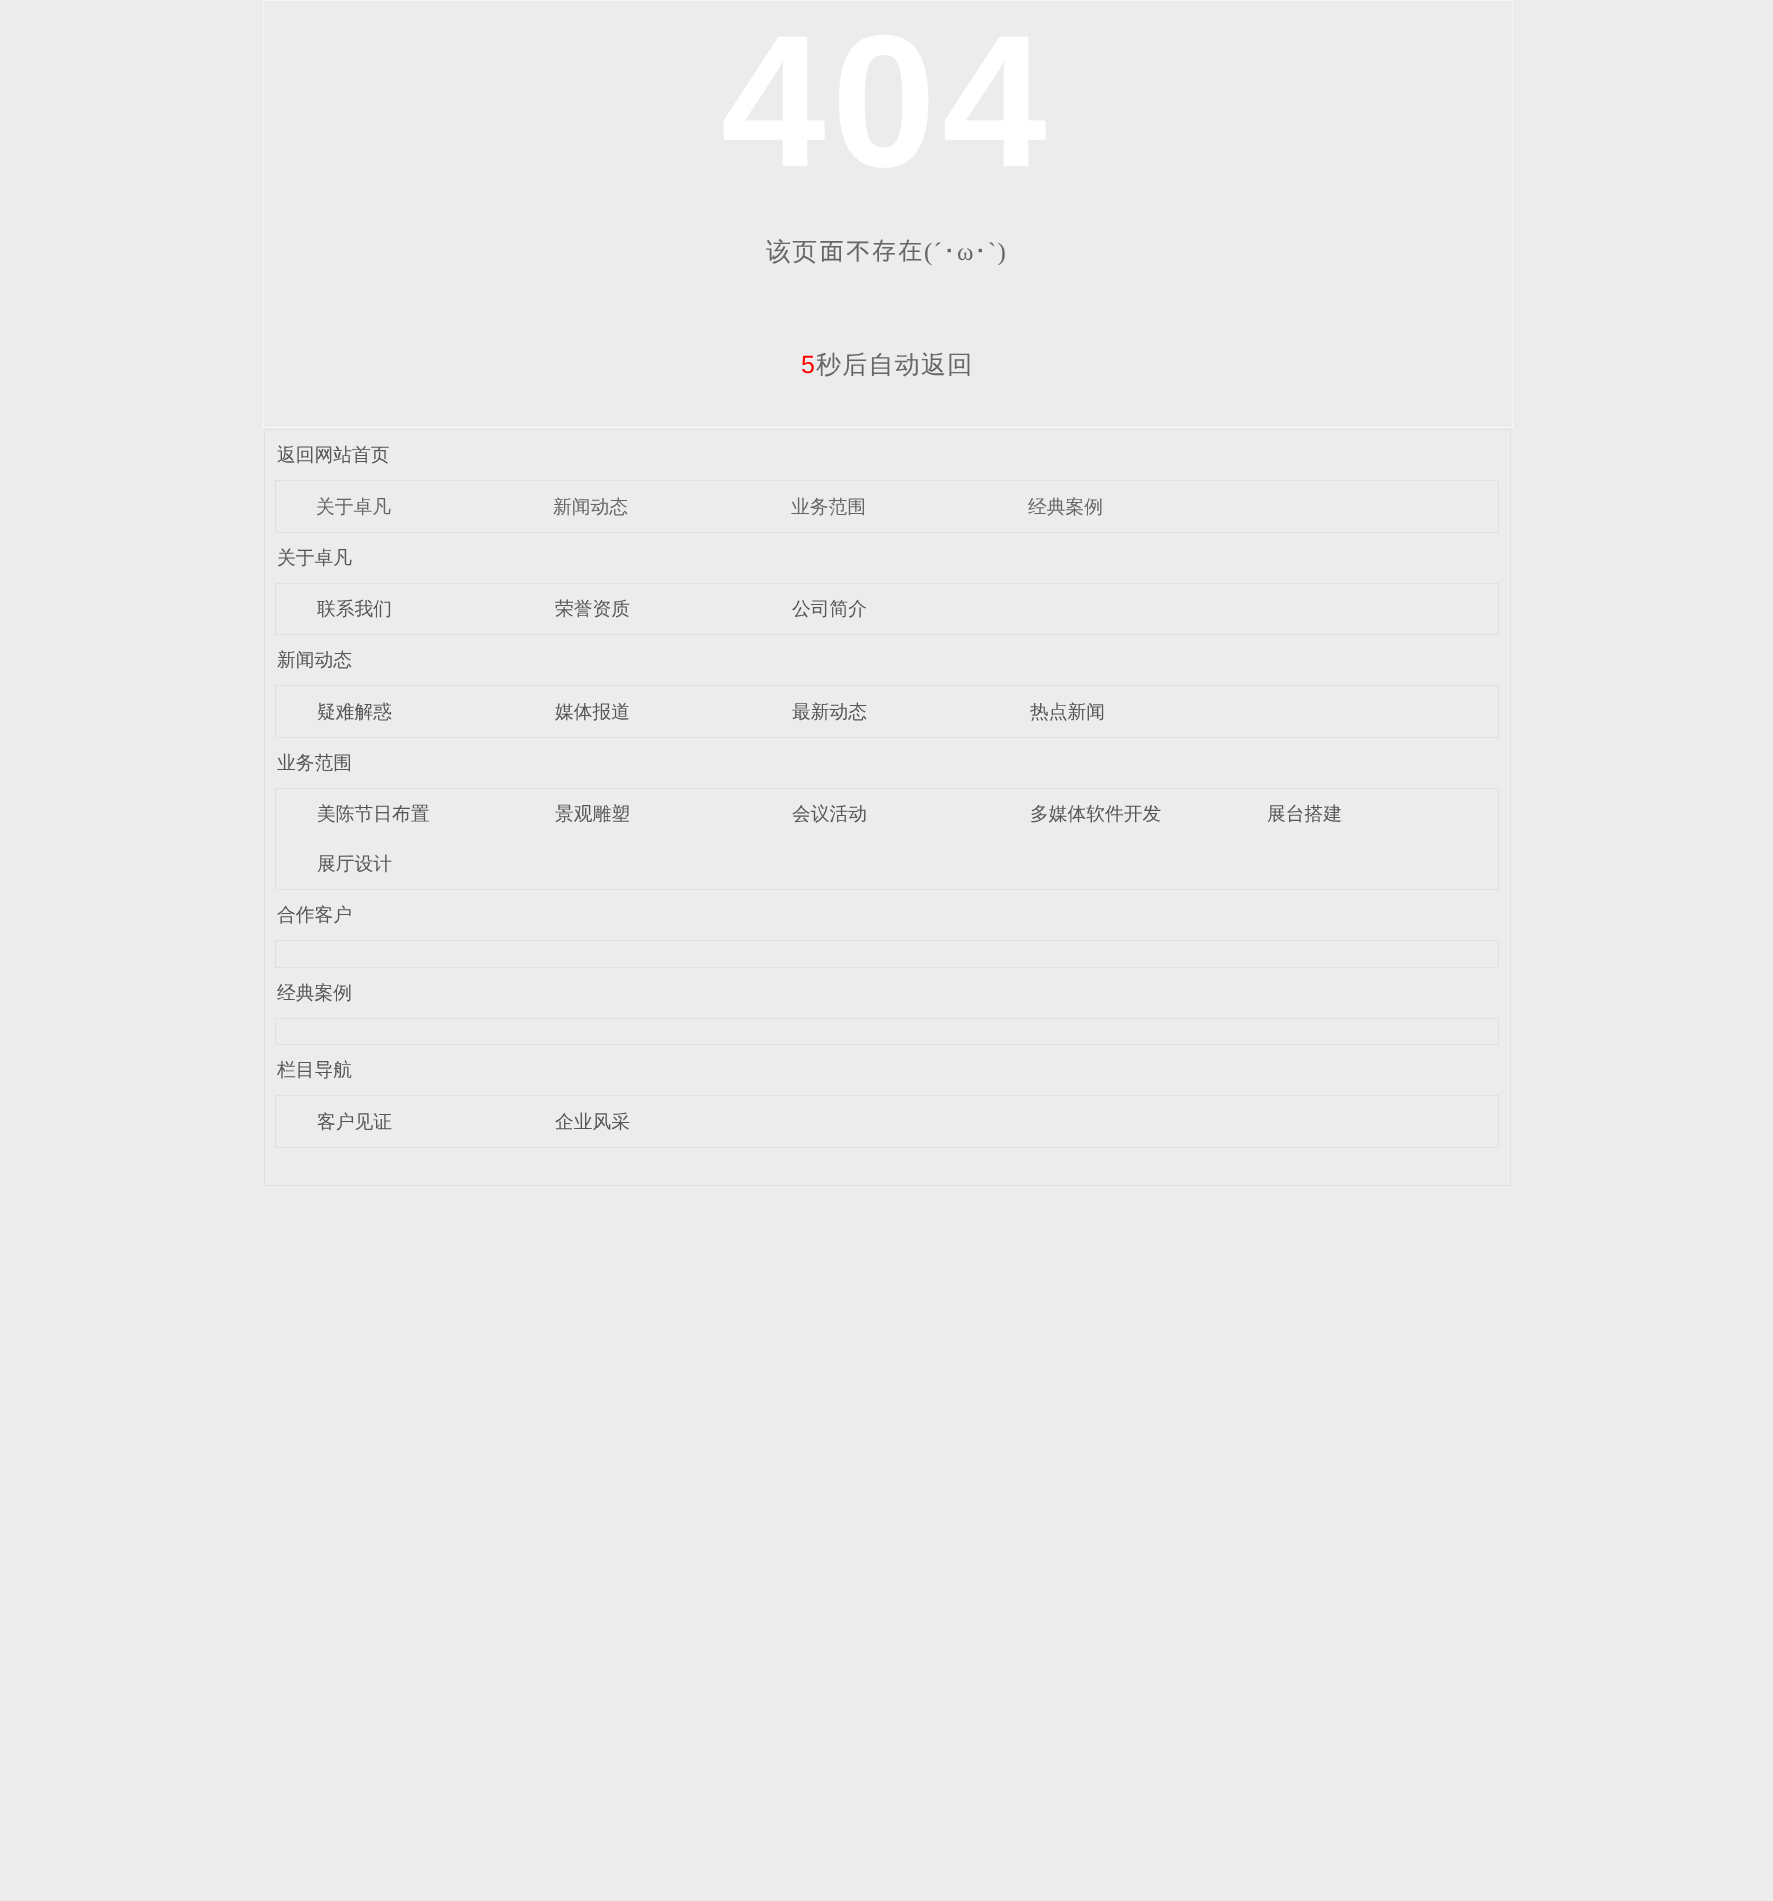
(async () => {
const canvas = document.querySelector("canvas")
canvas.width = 1773
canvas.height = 1901
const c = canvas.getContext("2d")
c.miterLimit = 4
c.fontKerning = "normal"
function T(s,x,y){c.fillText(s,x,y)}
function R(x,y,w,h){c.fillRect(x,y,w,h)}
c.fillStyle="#ececec"
R(0,0,1773,1901)
c.strokeStyle="#f7f7f7"
c.strokeRect(263.5,.5,1249,427)
c.letterSpacing="6px"
c.font="bold 188px Liberation Sans"
c.fillStyle="#fff"
T("404",721,166)
c.letterSpacing="1.25px"
c.font="500 25px WenQuanYi Zen Hei"
c.fillStyle="#666"
T("该页",766,260)
c.font="25px IPAGothic"
T("面不存在",819,260)
c.font="25px Liberation Serif"
T("(´",924,260)
c.font="25px IPAGothic"
T("･",943,260)
c.font="25px Liberation Serif"
T("ω",957,260)
c.font="25px IPAGothic"
T("･",974,260)
c.font="25px Liberation Serif"
T("`)",988,260)
c.font="25px Liberation Sans"
c.fillStyle="#f00"
T("5",801,373)
c.font="500 25px WenQuanYi Zen Hei"
c.fillStyle="#666"
T("秒后自动返回",816,373)
c.strokeStyle="#e0e0e0"
c.strokeRect(264.5,429.5,1246,756)
c.letterSpacing="0px"
c.font="500 18.75px WenQuanYi Zen Hei"
c.fillStyle="#565656"
T("返回网站首页",277,461)
c.strokeRect(275.5,480.5,1223,52)
c.fillStyle="#666"
T("关于卓凡",316,513)
T("新闻动态",553,513)
T("业务范围",791,513)
T("经典案例",1028,513)
c.fillStyle="#565656"
T("关于卓凡",277,564)
c.strokeRect(275.5,583.5,1223,51)
T("联系我们",317,615)
T("荣誉资质",555,615)
T("公司简介",792,615)
T("新闻动态",277,666)
c.strokeRect(275.5,685.5,1223,52)
T("疑难解惑",317,718)
T("媒体报道",555,718)
T("最新动态",792,718)
T("热点新闻",1030,718)
T("业务范围",277,769)
c.strokeRect(275.5,788.5,1223,101)
T("美陈节日布置",317,820)
T("景观雕塑",555,820)
T("会议活动",792,820)
T("多媒体软件开发",1030,820)
T("展台搭建",1267,820)
T("展厅设计",317,870)
T("合作客户",277,921)
c.strokeRect(275.5,940.5,1223,27)
T("经典案例",277,999)
c.strokeRect(275.5,1018.5,1223,26)
T("栏目导航",277,1076)
c.strokeRect(275.5,1095.5,1223,52)
T("客户见证",317,1128)
T("企业风采",555,1128)
})()
